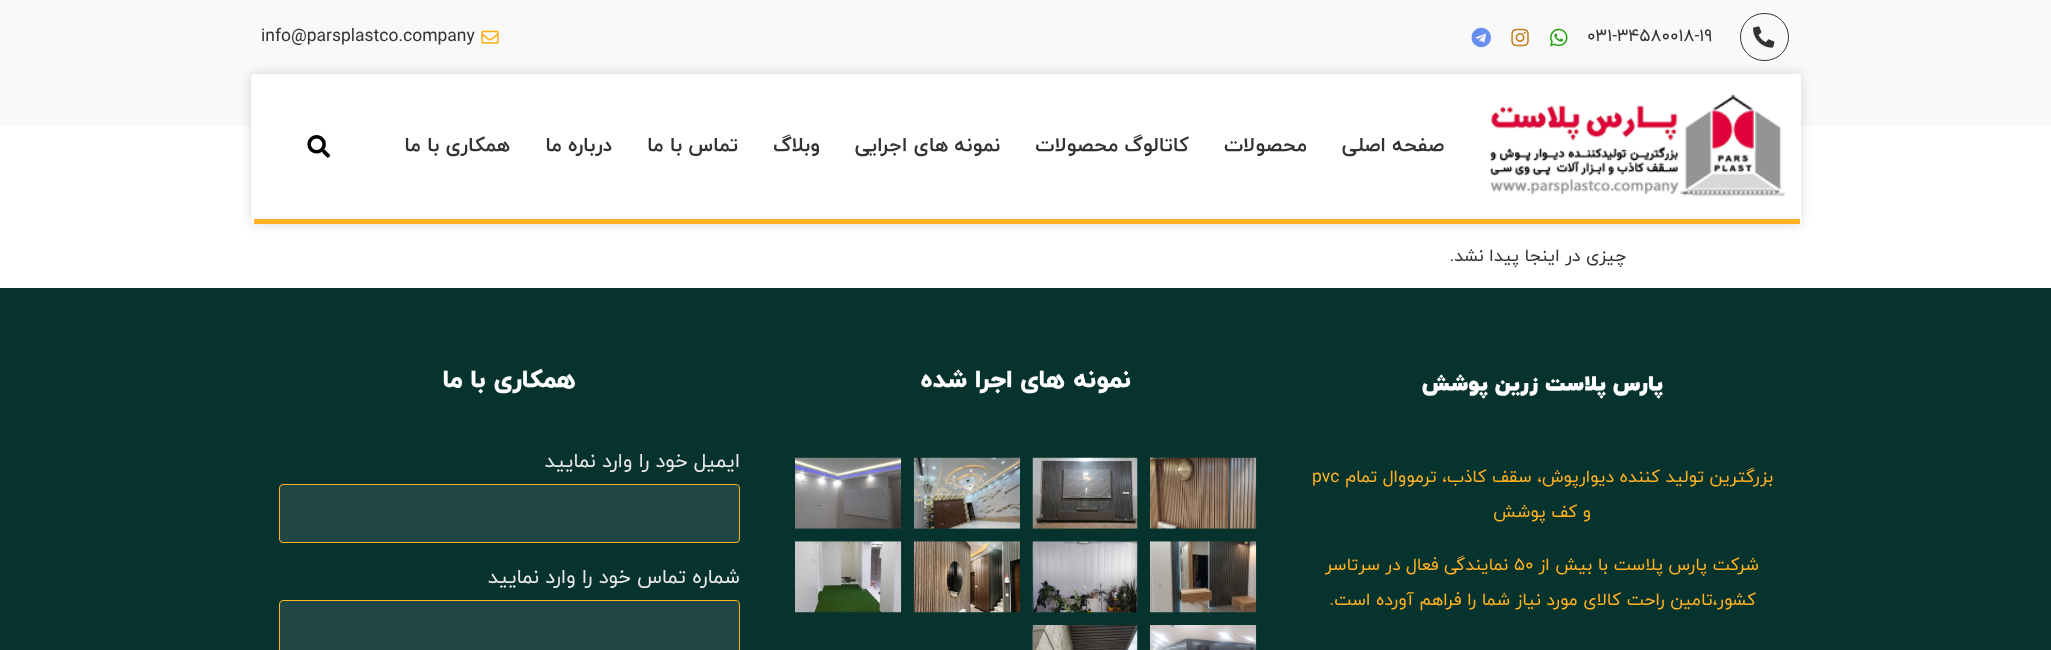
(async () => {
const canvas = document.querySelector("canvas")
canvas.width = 2051
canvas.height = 650
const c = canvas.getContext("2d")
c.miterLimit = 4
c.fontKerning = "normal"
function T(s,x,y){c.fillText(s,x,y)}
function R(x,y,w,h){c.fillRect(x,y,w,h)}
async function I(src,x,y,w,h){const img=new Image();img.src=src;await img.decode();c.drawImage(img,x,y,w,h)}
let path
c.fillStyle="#fff"
R(0,0,2051,650)
c.fillStyle="#f9f9f9"
R(0,0,2051,126)
c.beginPath()
c.roundRect(1740.5,13.5,48,47,23.5)
c.strokeStyle="#333"
c.stroke()
await I("1.png",1753,26,22,22)
c.font="17.5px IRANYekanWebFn"
c.fillStyle="#333"
T("031-34580018-19",1587,41)
await I("2.png",1550,28,18,19)
await I("3.png",1511,28,18,19)
await I("4.png",1471,27,20,21)
await I("5.png",481,30,18,14)
T("info@parsplastco.company",261,41)
c.save()
path = new Path2D("M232 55h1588v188h-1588zm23 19h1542c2 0 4 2 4 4v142c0 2-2 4-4 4h-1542c-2 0-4-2-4-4v-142c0-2 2-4 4-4z")
c.clip(path,"evenodd")
c.fillStyle="#00000026"
c.filter="blur(6px)"
c.beginPath()
c.roundRect(251,74,1550,150,4)
c.fill()
c.filter="none"
c.restore()
c.fillStyle="#fff"
path = new Path2D("M255 74h1543c2 0 3 1 3 4v141h-1550v-141c0-3 2-4 4-4z")
c.fill(path)
c.fillStyle="#ffb120"
R(254,219,1546,5)
await I("6.png",1490,95,296,102)
c.direction="rtl"
c.font="bold 20px IRANYekanWebFn"
c.fillStyle="#333"
T("صفحه اصلی",1444,151)
T("محصولات",1307,151)
T("کاتالوگ محصولات",1189,151)
T("نمونه های اجرایی",1000,151)
T("وبلاگ",820,151)
T("تماس با ما",738,151)
T("درباره ما",612,151)
T("همکاری با ما",510,151)
await I("7.png",307,135,24,23)
c.font="17.5px IRANYekanWebFn"
T("چیزی در اینجا پیدا نشد.",1626,261)
c.fillStyle="#07332f"
R(0,288,2051,362)
c.font="900 21.25px IRANYekanWebFn"
c.fillStyle="#fff"
T("پارس پلاست زرین پوشش",1663,390)
c.font="17.5px IRANYekanWebFn"
c.fillStyle="#ffb120"
T("بزرگترین تولید کننده دیوارپوش، سقف کاذب، ترمووال تمام",1773,482)
c.direction="ltr"
T("pvc",1312,482)
c.direction="rtl"
T("و کف پوشش",1591,517)
T("شرکت پارس پلاست با بیش از",1759,570)
c.direction="ltr"
T("50",1514,570)
c.direction="rtl"
T("نمایندگی فعال در سرتاسر",1508,570)
T("کشور،تامین راحت کالای مورد نیاز شما را فراهم آورده است.",1756,605)
c.font="800 25px IRANYekanWebFn"
c.fillStyle="#fff"
T("نمونه های اجرا شده",1131,387)
await I("8.png",1150,457,107,72)
await I("9.png",1032,457,106,72)
await I("10.png",913,457,107,72)
await I("11.png",795,457,107,72)
await I("12.png",1150,541,107,72)
await I("13.png",1032,541,106,72)
await I("14.png",913,541,107,72)
await I("15.png",795,541,107,72)
await I("16.png",1150,625,107,25)
await I("17.png",1032,625,106,25)
T("همکاری با ما",576,387)
c.font="20px IRANYekanWebFn"
c.fillStyle="#e8e8e8"
T("ایمیل خود را وارد نمایید",740,467)
c.fillStyle="#204744"
c.beginPath()
c.roundRect(279.5,484.5,460,58,3.5)
c.fill()
c.strokeStyle="#ffb120"
c.stroke()
c.fillStyle="#e8e8e8"
T("شماره تماس خود را وارد نمایید",740,583)
c.fillStyle="#204744"
c.beginPath()
c.roundRect(279.5,600.5,460,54,3.5)
c.fill()
c.stroke()
})()
